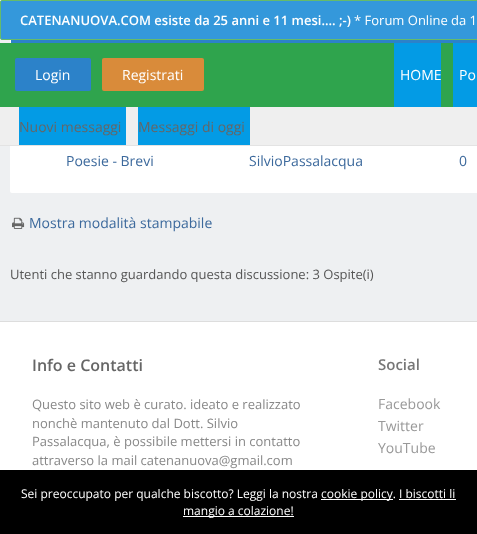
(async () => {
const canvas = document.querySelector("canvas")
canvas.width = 477
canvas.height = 534
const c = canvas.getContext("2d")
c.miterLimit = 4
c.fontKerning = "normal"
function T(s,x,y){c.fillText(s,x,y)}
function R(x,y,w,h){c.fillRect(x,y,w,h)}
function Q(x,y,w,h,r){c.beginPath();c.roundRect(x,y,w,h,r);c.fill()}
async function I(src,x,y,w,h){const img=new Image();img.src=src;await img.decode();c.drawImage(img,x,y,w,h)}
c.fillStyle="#eef0f2"
R(0,0,477,534)
c.fillStyle="#fff"
Q(10,24,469,169,2)
c.fillStyle="#3498db"
c.beginPath()
c.roundRect(.5,.5,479,39,1.5)
c.fill()
c.strokeStyle="#66bb6a"
c.stroke()
c.font="600 13px Open Sans"
c.fillStyle="#fff"
T("CATENANUOVA.COM esiste da 25 anni e 11 mesi.... ;-)",20,25)
c.font="13px Open Sans"
T("* Forum Online da 1",354,25)
c.fillStyle="#2fa44d"
R(0,43,453,64)
c.fillStyle="#2c82c9"
Q(15,58,76,33,2)
c.font="14px Open Sans"
c.fillStyle="#fff"
T("Login",35,80)
c.fillStyle="#d98b3a"
Q(102,58,102,33,2)
c.fillStyle="#fff"
T("Registrati",122,80)
c.fillStyle="#039be5"
R(394,43,47,64)
c.fillStyle="#fff"
T("HOME",400,80)
c.fillStyle="#039be5"
R(453,43,24,64)
c.fillStyle="#fff"
T("Po",459,80)
c.fillStyle="#efefef"
R(0,107,477,38)
c.fillStyle="#e3e3e3"
R(0,145,477,1)
c.fillStyle="#039be5"
R(19,107,107,38)
c.fillStyle="#666"
T("Nuovi messaggi",19,132)
c.fillStyle="#039be5"
R(138,107,112,38)
c.fillStyle="#666"
T("Messaggi di oggi",138,132)
c.fillStyle="#2c82c9"
R(11,40,466,3)
c.fillStyle="#3c699c"
T("Poesie - Brevi",66,166)
T("SilvioPassalacqua",249,166)
T("0",459,166)
await I("1.png",12,217,13,12)
T("Mostra modalità stampabile",29,228)
c.font="13px Open Sans"
c.fillStyle="#555"
T("Utenti che stanno guardando questa discussione: 3 Ospite(i)",10,279)
c.fillStyle="#fff"
R(0,322,477,148)
c.fillStyle="#ddd"
R(0,321,477,1)
c.font="600 16px Open Sans"
c.fillStyle="#666"
T("Info e Contatti",32,371)
c.font="13px Open Sans"
c.fillStyle="#888"
T("Questo sito web è curato. ideato e realizzato",32,409)
T("nonchè mantenuto dal Dott. Silvio",32,428)
T("Passalacqua, è possibile mettersi in contatto",32,446)
T("attraverso la mail catenanuova@gmail.com",32,465)
c.font="600 15px Open Sans"
c.fillStyle="#777"
T("Social",378,370)
c.font="14px Open Sans"
c.fillStyle="#999"
T("Facebook",378,409)
T("Twitter",378,431)
T("YouTube",378,453)
c.fillStyle="#000"
R(0,470,477,64)
c.font="12px Open Sans"
c.fillStyle="#fff"
T("Sei preoccupato per qualche biscotto? Leggi la nostra",21,498)
R(321,499,72,1)
T("cookie policy. I biscotti li",321,498)
R(183,516,111,1)
T("mangio a colazione!",183,515)
R(399,499,57,1)
})()
